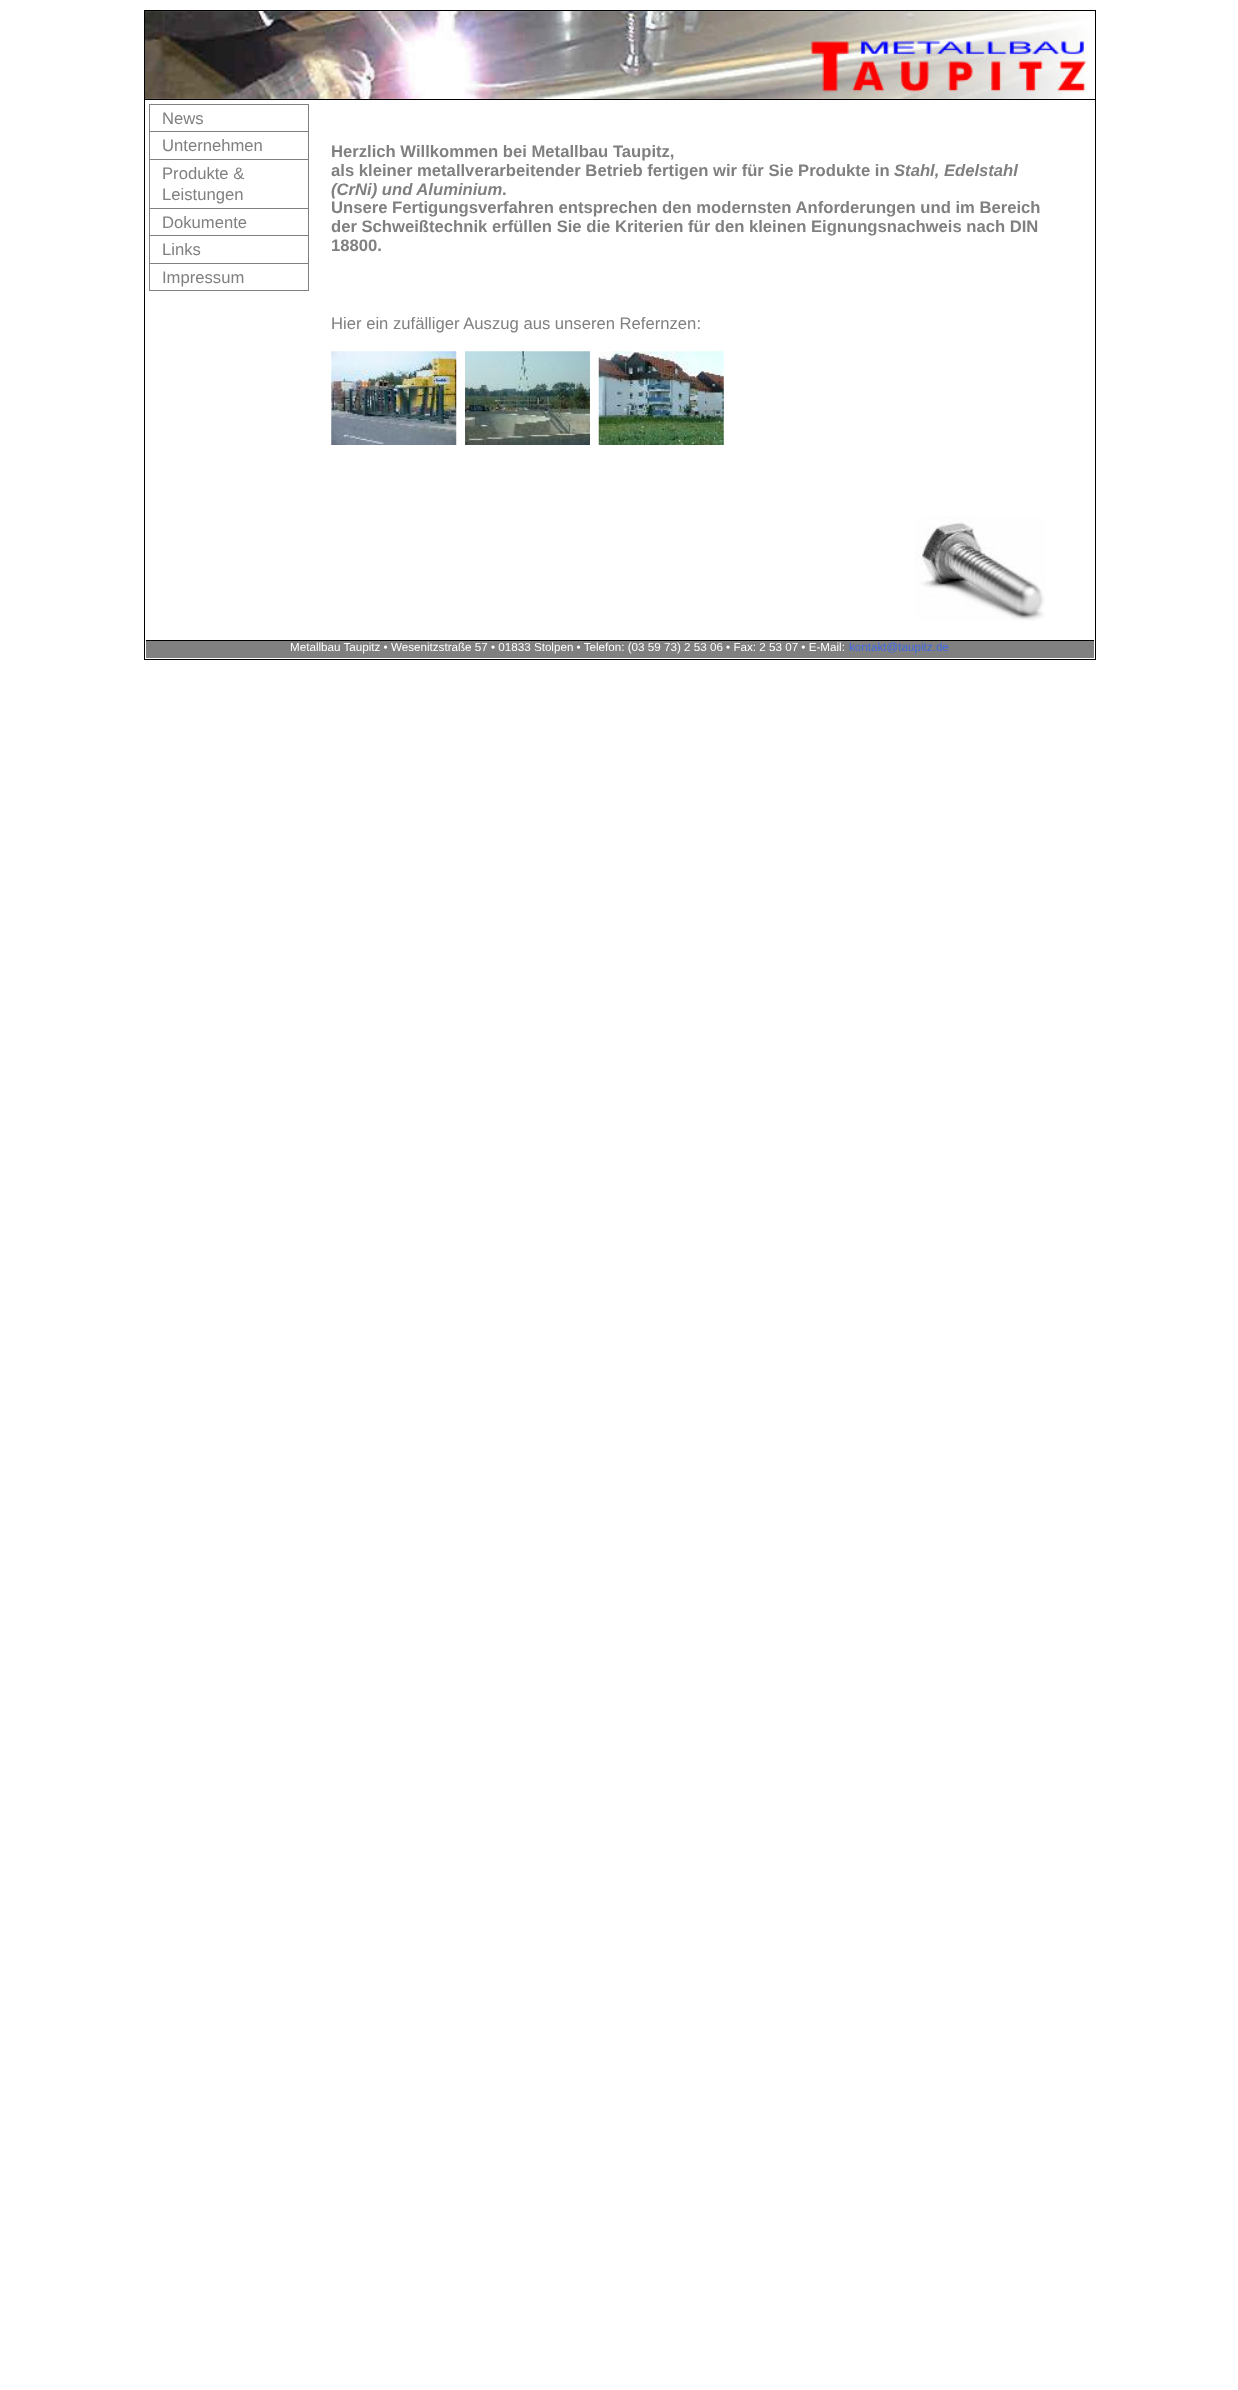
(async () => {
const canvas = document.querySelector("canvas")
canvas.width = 1238
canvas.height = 2390
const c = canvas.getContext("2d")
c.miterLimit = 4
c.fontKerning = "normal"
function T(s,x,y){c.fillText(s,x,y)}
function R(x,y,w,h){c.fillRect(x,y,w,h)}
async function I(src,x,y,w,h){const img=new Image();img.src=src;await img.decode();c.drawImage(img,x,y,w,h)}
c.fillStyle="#fff"
R(0,0,1238,2390)
c.strokeStyle="#000"
c.strokeRect(144.5,10.5,951,649)
await I("1.png",145,11,945,88)
c.fillStyle="#000"
R(145,99,950,1)
await I("2.png",145,11,896,88)
c.fillStyle="#808080"
R(149,104,160,1)
R(308,105,1,186)
R(149,131,160,1)
R(149,105,1,28)
c.font="16.65px Liberation Sans"
T("News",162,124)
R(149,159,160,1)
R(149,133,1,27)
T("Unternehmen",162,151)
R(149,208,160,1)
R(149,160,1,49)
T("Produkte &",162,179)
T("Leistungen",162,200)
R(149,235,160,1)
R(149,209,1,27)
T("Dokumente",162,228)
R(149,263,160,1)
R(149,236,1,28)
T("Links",162,255)
R(149,290,160,1)
R(149,264,1,27)
T("Impressum",162,283)
await I("3.png",915,516,130,105)
c.font="bold 16.65px Liberation Sans"
T("Herzlich Willkommen bei Metallbau Taupitz,",331,157)
T("als kleiner metallverarbeitender Betrieb fertigen wir für Sie Produkte in",331,176)
c.font="italic bold 16.65px Liberation Sans"
T("Stahl, Edelstahl",894,176)
T("(CrNi) und Aluminium",331,195)
c.font="bold 16.65px Liberation Sans"
T(".",502,195)
T("Unsere Fertigungsverfahren entsprechen den modernsten Anforderungen und im Bereich",331,213)
T("der Schweißtechnik erfüllen Sie die Kriterien für den kleinen Eignungsnachweis nach DIN",331,232)
T("18800.",331,251)
c.font="16.65px Liberation Sans"
T("Hier ein zufälliger Auszug aus unseren Refernzen:",331,329)
await I("4.png",331,351,126,94)
await I("5.png",465,351,125,94)
await I("6.png",598,351,126,94)
R(146,641,948,17)
c.fillStyle="#000"
R(145,640,950,1)
c.fillStyle="#fff"
R(1094,640,1,1)
R(145,640,1,1)
c.font="11.65px Liberation Sans"
T("Metallbau Taupitz • Wesenitzstraße 57 • 01833 Stolpen • Telefon: (03 59 73) 2 53 06 • Fax: 2 53 07 • E-Mail:",290,651)
c.fillStyle="#4169e1"
T("kontakt@taupitz.de",849,651)
})()
